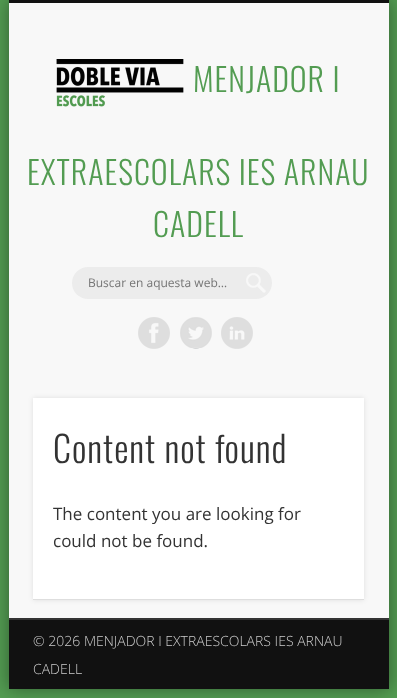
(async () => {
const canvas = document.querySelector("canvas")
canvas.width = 397
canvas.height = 698
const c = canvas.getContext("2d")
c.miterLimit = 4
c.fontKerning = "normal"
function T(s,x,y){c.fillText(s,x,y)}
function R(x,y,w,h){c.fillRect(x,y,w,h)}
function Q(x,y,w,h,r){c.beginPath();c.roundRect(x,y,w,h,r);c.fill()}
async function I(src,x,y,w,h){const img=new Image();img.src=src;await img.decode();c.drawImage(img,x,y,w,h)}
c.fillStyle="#539c52"
R(0,0,397,698)
c.fillStyle="#00000066"
c.filter="blur(9px)"
c.beginPath()
c.rect(9,0,380,689)
c.fill()
c.filter="none"
c.fillStyle="#f8f8f8"
R(9,3,380,615)
c.fillStyle="#111"
R(9,0,380,3)
await I("1.png",56,59,128,48)
c.letterSpacing="1px"
c.font="300 32px Oswald"
c.fillStyle="#539c52"
T("MENJADOR I",193,92)
T("EXTRAESCOLARS IES ARNAU",27,185)
T("CADELL",153,237)
c.fillStyle="#ececec"
Q(72,267,200,32,16)
await I("2.png",246,273,20,20)
c.letterSpacing="0px"
c.font="12px Open Sans"
c.fillStyle="#757575"
T("Buscar en aquesta web…",88,287)
await I("3.png",138,317,32,32)
await I("4.png",180,317,32,32)
await I("5.png",221,317,32,32)
c.fillStyle="#0000001a"
c.filter="blur(2.5px)"
c.beginPath()
c.rect(33,398,331,202)
c.fill()
c.filter="none"
c.fillStyle="#fff"
R(33,398,331,201)
c.fillStyle="#dedede"
R(33,599,331,1)
c.letterSpacing="1px"
c.font="300 36px Oswald"
c.fillStyle="#333"
T("Content not found",53,463)
c.letterSpacing="0px"
c.font="17px Open Sans"
T("The content you are looking for",53,520)
T("could not be found.",53,547)
c.fillStyle="#343434"
R(9,618,380,2)
c.fillStyle="#111"
R(9,620,380,69)
c.font="300 14px Open Sans"
c.fillStyle="#ccc"
T("© 2026 MENJADOR I EXTRAESCOLARS IES ARNAU",33,646)
T("CADELL",33,674)
})()
